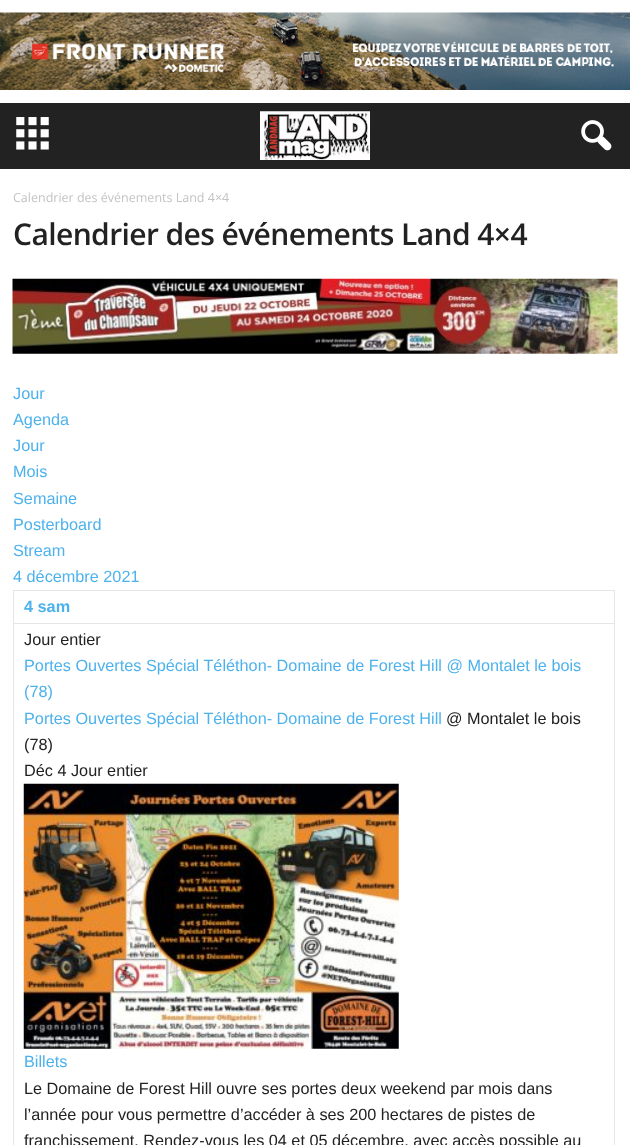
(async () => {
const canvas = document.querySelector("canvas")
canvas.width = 630
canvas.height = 1145
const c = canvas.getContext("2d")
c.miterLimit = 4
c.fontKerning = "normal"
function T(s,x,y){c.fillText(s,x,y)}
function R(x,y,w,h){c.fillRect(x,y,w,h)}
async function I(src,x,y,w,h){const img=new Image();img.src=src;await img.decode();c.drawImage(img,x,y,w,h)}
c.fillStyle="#fff"
R(0,0,630,1145)
await I("1.png",0,12,630,78)
c.fillStyle="#222"
R(0,103,630,66)
await I("2.png",16,117,33,33)
await I("3.png",260,111,110,49)
await I("4.png",581,120,31,31)
c.font="12.5px Open Sans"
c.fillStyle="#c3c3c3"
T("Calendrier des événements Land 4×4",13,202)
c.letterSpacing="-0.6px"
c.font="600 30px Open Sans"
c.fillStyle="#222"
T("Calendrier des événements Land 4×4",13,245)
await I("5.png",12,278,606,76)
c.letterSpacing="0px"
c.font="16.25px Liberation Sans"
c.fillStyle="#4db2ec"
T("Jour",13,399)
T("Agenda",13,425)
T("Jour",13,451)
T("Mois",13,477)
T("Semaine",13,504)
T("Posterboard",13,530)
T("Stream",13,556)
T("4 décembre 2021",13,582)
c.fillStyle="#e6e6e6"
R(13,590,602,1)
R(13,623,602,1)
R(614,623,1,522)
R(614,590,1,34)
R(13,623,1,522)
R(13,590,1,34)
c.font="bold 16.25px Liberation Sans"
c.fillStyle="#4db2ec"
T("4 sam",24,612)
c.font="16.25px Liberation Sans"
c.fillStyle="#222"
T("Jour entier",24,645)
c.fillStyle="#4db2ec"
T("Portes Ouvertes Spécial Téléthon- Domaine de Forest Hill @ Montalet le bois",24,671)
T("(78)",24,697)
T("Portes Ouvertes Spécial Téléthon- Domaine de Forest Hill",24,724)
c.fillStyle="#222"
T("@ Montalet le bois",446,724)
T("(78)",24,750)
T("Déc 4 Jour entier",24,776)
await I("6.png",23,783,376,266)
c.fillStyle="#4db2ec"
T("Billets",24,1067)
c.fillStyle="#222"
T("Le Domaine de Forest Hill ouvre ses portes deux weekend par mois dans",24,1094)
T("l’année pour vous permettre d’accéder à ses 200 hectares de pistes de",24,1120)
T("franchissement. Rendez-vous les 04 et 05 décembre, avec accès possible au",24,1146)
})()
